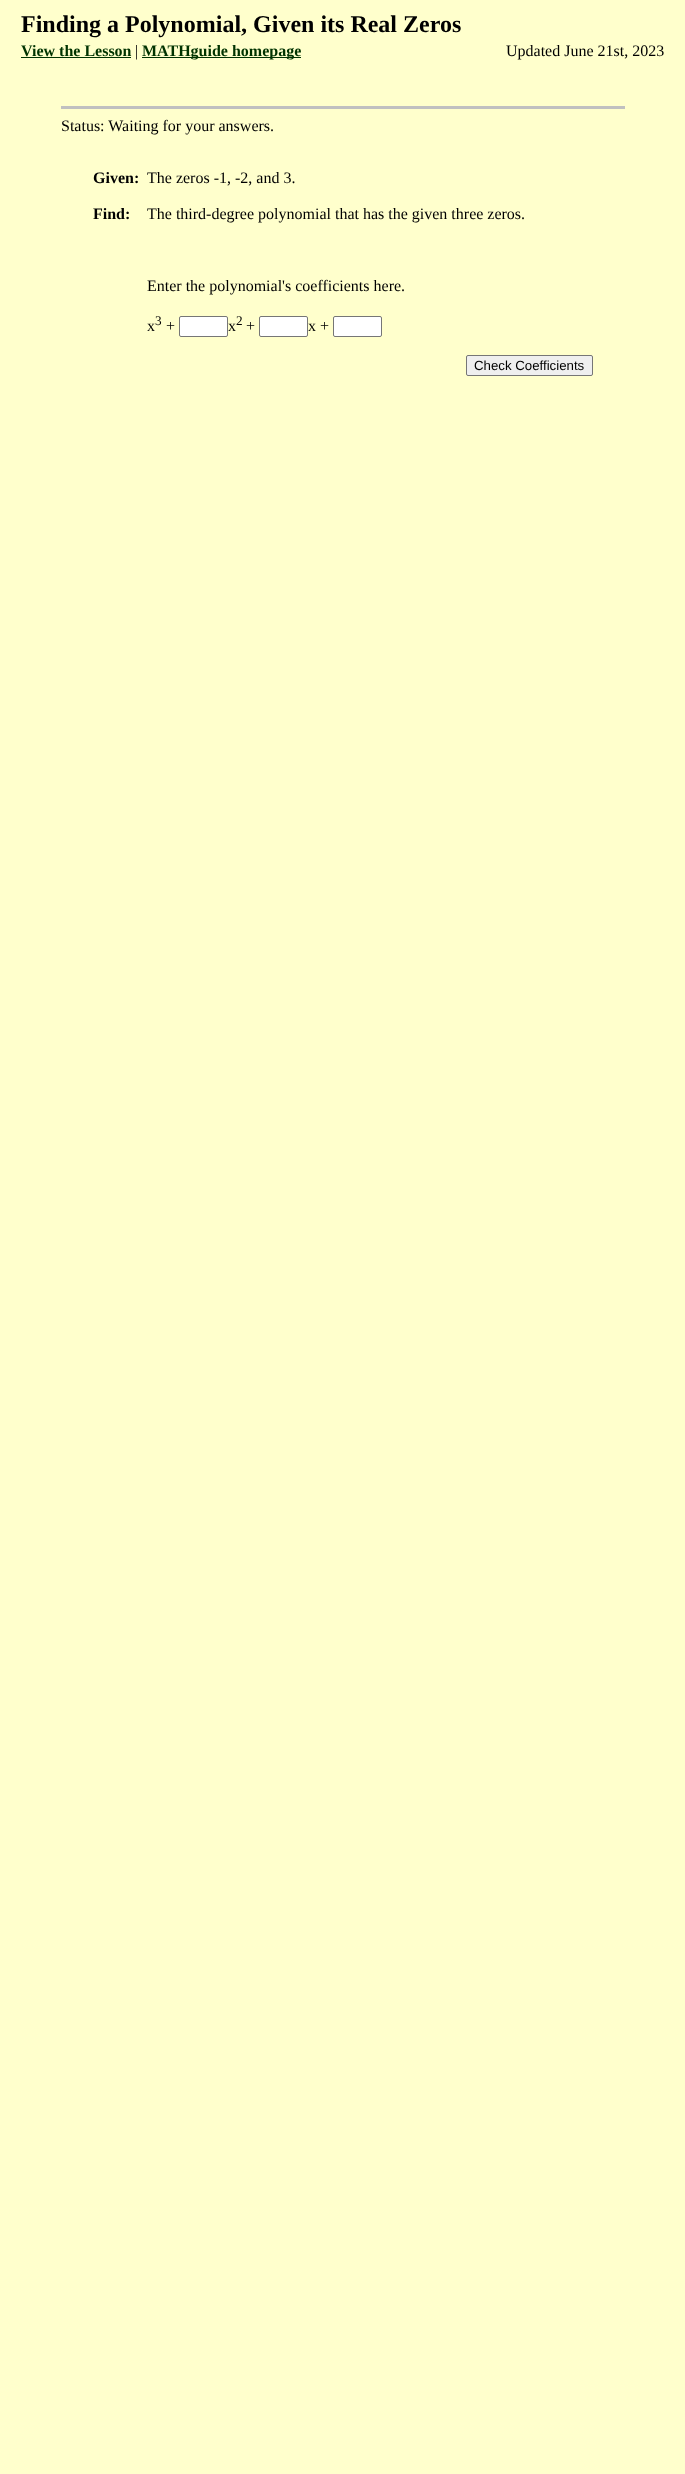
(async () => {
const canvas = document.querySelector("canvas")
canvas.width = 685
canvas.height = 2474
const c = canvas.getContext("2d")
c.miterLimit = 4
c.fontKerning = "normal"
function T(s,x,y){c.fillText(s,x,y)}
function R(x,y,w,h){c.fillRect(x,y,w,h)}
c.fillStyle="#ffc"
R(0,0,685,2474)
c.font="bold 24px Liberation Serif"
c.fillStyle="#000"
T("Finding a Polynomial, Given its Real Zeros",21,32)
c.font="bold 16px Liberation Serif"
c.fillStyle="#030"
T("View the Lesson",21,56)
R(21,57,110,1)
c.font="16px Liberation Serif"
c.fillStyle="#000"
T("|",135,56)
c.fillStyle="#030"
R(142,57,159,1)
c.font="bold 16px Liberation Serif"
T("MATHguide homepage",142,56)
c.font="16px Liberation Serif"
c.fillStyle="#000"
T("Updated June 21st, 2023",506,56)
c.fillStyle="#c0c0c0"
R(61,106,564,3)
c.fillStyle="#000"
T("Status: Waiting for your answers.",61,131)
c.font="bold 16px Liberation Serif"
T("Given:",93,183)
c.font="16px Liberation Serif"
T("The zeros -1, -2, and 3.",147,183)
c.font="bold 16px Liberation Serif"
T("Find:",93,219)
c.font="16px Liberation Serif"
T("The third-degree polynomial that has the given three zeros.",147,219)
T("Enter the polynomial's coefficients here.",147,291)
T("x",147,331)
c.font="13.25px Liberation Serif"
T("3",155,325)
c.font="16px Liberation Serif"
T("+",166,331)
c.fillStyle="#fff"
c.beginPath()
c.roundRect(179.5,316.5,48,20,1.5)
c.fill()
c.strokeStyle="#767676"
c.stroke()
c.fillStyle="#000"
T("x",228,331)
c.font="13.25px Liberation Serif"
T("2",236,325)
c.font="16px Liberation Serif"
T("+",246,331)
c.fillStyle="#fff"
c.beginPath()
c.roundRect(259.5,316.5,48,20,1.5)
c.fill()
c.stroke()
c.fillStyle="#000"
T("x +",308,331)
c.fillStyle="#fff"
c.beginPath()
c.roundRect(333.5,316.5,48,20,1.5)
c.fill()
c.stroke()
c.fillStyle="#efefef"
c.beginPath()
c.roundRect(466.5,355.5,126,20,1.5)
c.fill()
c.stroke()
c.font="13.25px Liberation Sans"
c.fillStyle="#000"
T("Check Coefficients",474,370)
})()
